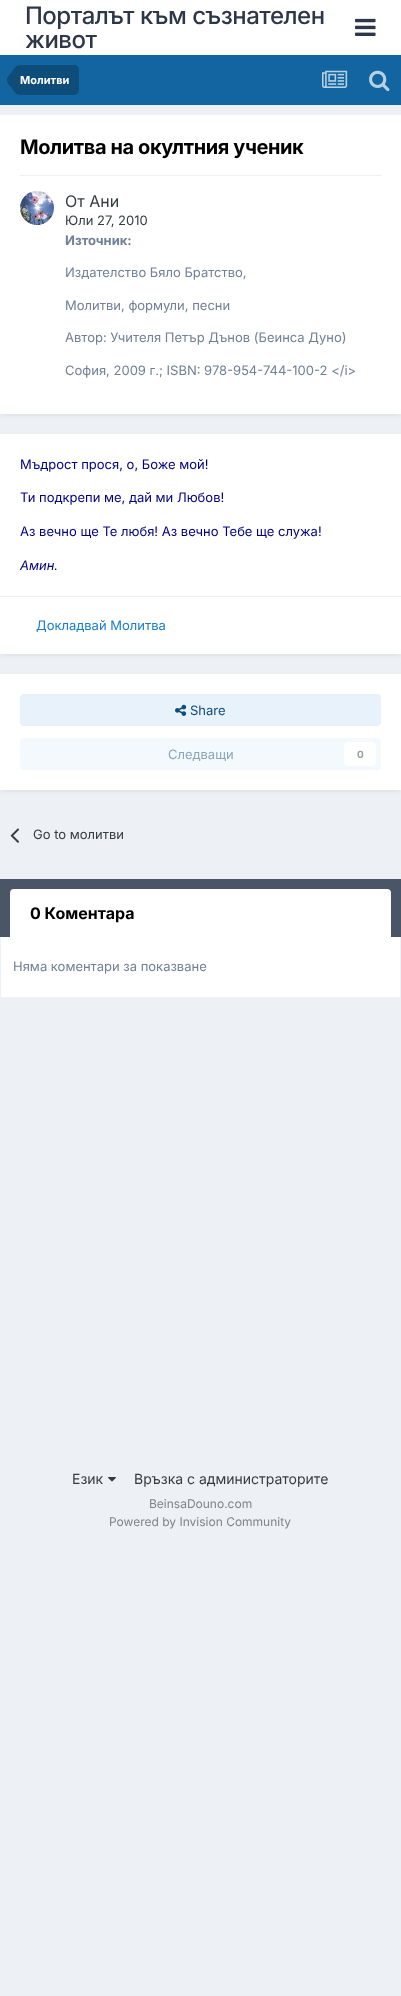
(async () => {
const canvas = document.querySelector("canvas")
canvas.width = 401
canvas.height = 1996
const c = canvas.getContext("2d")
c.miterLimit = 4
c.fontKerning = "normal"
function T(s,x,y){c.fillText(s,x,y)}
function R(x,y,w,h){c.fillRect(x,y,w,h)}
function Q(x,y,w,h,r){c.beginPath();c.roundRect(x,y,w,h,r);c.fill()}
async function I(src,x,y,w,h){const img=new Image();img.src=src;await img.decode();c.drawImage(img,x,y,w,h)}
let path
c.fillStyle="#edf0f4"
R(0,0,401,1996)
c.fillStyle="#fff"
R(0,0,401,55)
c.letterSpacing="-0.5px"
c.font="500 24px Inter"
c.fillStyle="#2d3748"
T("Порталът към съзнателен",25,24)
T("живот",25,48)
await I("1.png",355,18,21,18)
c.fillStyle="#1265a1"
R(0,55,401,50)
c.fillStyle="#0e4c79"
c.beginPath()
c.roundRect(20,65,59,30,[0,5,5,0])
c.fill()
path = new Path2D("M20 80v15c-4.5 0-6.5-4.5-9-8c-1.5-2-4-4-4-7zm0 0h-13c0-3 2.5-5 4-7c2.5-3.5 4.5-8 9-8z")
c.fill(path)
c.letterSpacing="0px"
c.font="bold 11px Inter"
c.fillStyle="#fff"
T("Молитви",20,84)
await I("2.png",322,70,26,18)
await I("3.png",369,70,21,22)
c.fillStyle="#2d37481a"
c.filter="blur(2px)"
c.beginPath()
c.rect(1,118,399,297)
c.fill()
c.filter="none"
c.fillStyle="#fff"
R(0,115,401,299)
c.letterSpacing="-0.4px"
c.font="bold 20px Inter"
c.fillStyle="#000"
T("Молитва на окултния ученик",20,154)
c.fillStyle="#efeff0"
R(20,175,361,1)
await I("4.png",20,191,34,34)
c.letterSpacing="0px"
c.font="16px Inter"
c.fillStyle="#353c41"
T("От Ани",65,207)
c.font="13px Inter"
T("Юли 27, 2010",65,225)
c.font="bold 13px Inter"
c.fillStyle="#718096"
T("Източник:",65,245)
c.font="13px Inter"
T("Издателство Бяло Братство,",65,277)
T("Молитви, формули, песни",65,310)
T("Автор: Учителя Петър Дънов (Беинса Дуно)",65,342)
T("София, 2009 г.; ISBN: 978-954-744-100-2 <\/i>",65,375)
c.fillStyle="#2d37481a"
c.filter="blur(2px)"
c.beginPath()
c.rect(1,437,399,218)
c.fill()
c.filter="none"
c.fillStyle="#fff"
R(0,434,401,220)
c.fillStyle="#000080"
T("Мъдрост прося, о, Боже мой!",20,469)
T("Ти подкрепи ме, дай ми Любов!",20,502)
T("Аз вечно ще Те любя! Аз вечно Тебе ще служа!",20,536)
c.font="italic 13px Inter"
T("Амин.",20,570)
c.fillStyle="#ebecec"
R(0,596,401,1)
c.font="13px Inter"
c.fillStyle="#177ec9"
T("Докладвай Молитва",36,630)
c.fillStyle="#2d37481a"
c.filter="blur(2px)"
c.beginPath()
c.rect(1,677,399,114)
c.fill()
c.filter="none"
c.fillStyle="#fff"
R(0,674,401,116)
c.fillStyle="#e8f2fa"
Q(20,694,361,32,4)
await I("5.png",175,704,12,12)
c.fillStyle="#0e4c79"
T("Share",190,715)
c.fillStyle="#f4f9fd"
Q(20,738,361,32,4)
c.fillStyle="#87a6bc"
T("Следващи",168,759)
c.fillStyle="#fff"
Q(344,742,32,24,4)
c.font="bold 10px Inter"
c.fillStyle="#9a9ea0"
T("0",357,758)
await I("6.png",10,828,10,15)
c.font="13px Inter"
c.fillStyle="#353c41"
T("Go to молитви",33,839)
c.fillStyle="#4a5568"
R(0,879,401,58)
c.fillStyle="#fff"
c.beginPath()
c.roundRect(10,889,381,48,[4,4,0,0])
c.fill()
c.font="bold 16px Inter"
c.fillStyle="#000"
T("0 Коментара",30,919)
c.fillStyle="#fff"
R(1,937,399,60)
c.fillStyle="#edf2f7"
R(400,937,1,61)
R(0,997,401,1)
R(0,937,1,61)
c.font="13px Inter"
c.fillStyle="#718096"
T("Няма коментари за показване",13,971)
c.font="14px Inter"
c.fillStyle="#353c41"
T("Език",72,1484)
await I("7.png",108,1477,8,5)
T("Връзка с администраторите",134,1484)
c.font="12px Inter"
c.fillStyle="#7f8489"
T("BeinsaDouno.com",149,1508)
T("Powered by Invision Community",109,1526)
})()
